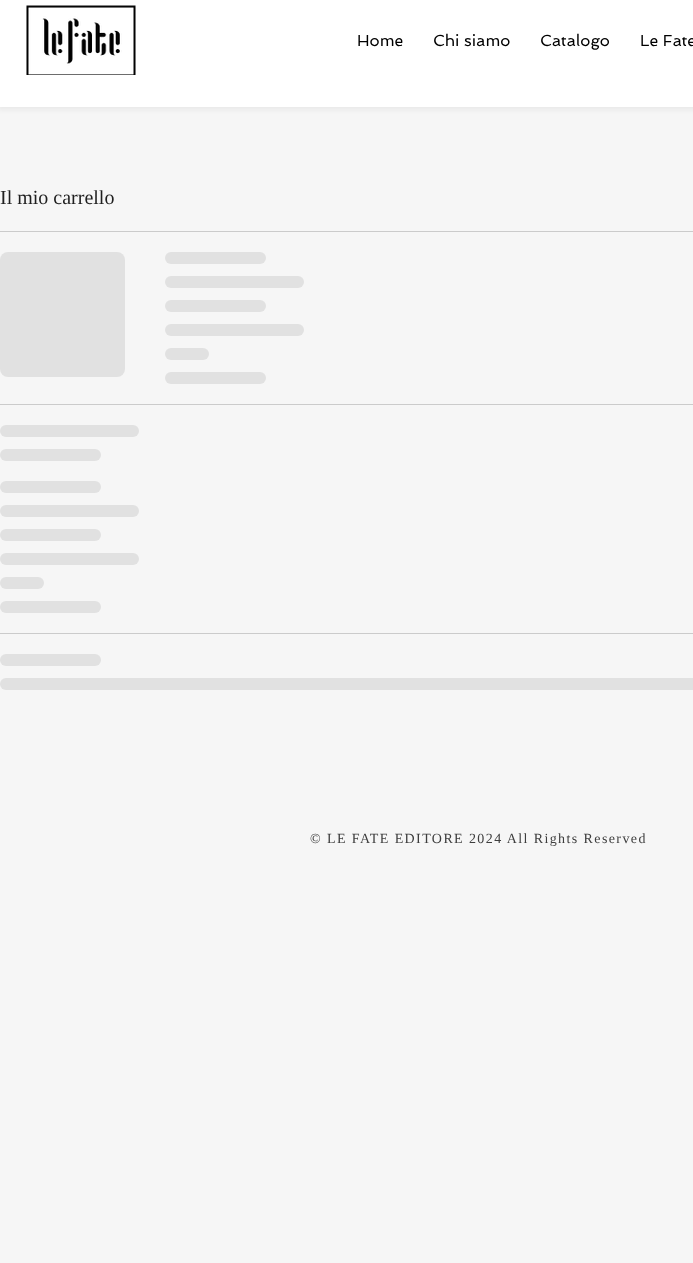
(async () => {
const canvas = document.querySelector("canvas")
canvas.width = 693
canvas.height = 1263
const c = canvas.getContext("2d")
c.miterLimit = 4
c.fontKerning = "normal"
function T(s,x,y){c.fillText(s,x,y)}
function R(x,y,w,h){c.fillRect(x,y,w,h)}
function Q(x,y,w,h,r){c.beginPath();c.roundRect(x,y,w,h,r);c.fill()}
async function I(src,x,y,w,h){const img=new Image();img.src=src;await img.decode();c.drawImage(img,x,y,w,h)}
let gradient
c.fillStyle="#f6f6f6"
R(0,0,693,1263)
c.fillStyle="#0000000d"
c.filter="blur(2.5px)"
c.beginPath()
c.rect(-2,-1,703,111)
c.fill()
c.filter="none"
c.fillStyle="#fff"
R(0,0,693,107)
await I("1.png",26,5,110,70)
c.font="16px Spinnaker"
c.fillStyle="#000"
T("Home",357,46)
T("Chi siamo",433,46)
T("Catalogo",540,46)
T("Le Fate",640,46)
c.fillStyle="#cbcbcb"
R(0,231,693,1)
c.font="20px Liberation Serif"
c.fillStyle="#1f1f1f"
T("Il mio carrello",0,204)
gradient = c.createLinearGradient(0,315,500,315)
gradient.addColorStop(.25,"#e1e1e1")
gradient.addColorStop(.37,"#cbcbcb")
gradient.addColorStop(.63,"#e1e1e1")
c.fillStyle = gradient
Q(0,252,125,125,8)
gradient = c.createLinearGradient(165,258,569,258)
gradient.addColorStop(.25,"#e1e1e1")
gradient.addColorStop(.37,"#cbcbcb")
gradient.addColorStop(.63,"#e1e1e1")
c.fillStyle = gradient
Q(165,252,101,12,6)
gradient = c.createLinearGradient(165,282,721,282)
gradient.addColorStop(.25,"#e1e1e1")
gradient.addColorStop(.37,"#cbcbcb")
gradient.addColorStop(.63,"#e1e1e1")
c.fillStyle = gradient
Q(165,276,139,12,6)
gradient = c.createLinearGradient(165,306,569,306)
gradient.addColorStop(.25,"#e1e1e1")
gradient.addColorStop(.37,"#cbcbcb")
gradient.addColorStop(.63,"#e1e1e1")
c.fillStyle = gradient
Q(165,300,101,12,6)
gradient = c.createLinearGradient(165,330,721,330)
gradient.addColorStop(.25,"#e1e1e1")
gradient.addColorStop(.37,"#cbcbcb")
gradient.addColorStop(.63,"#e1e1e1")
c.fillStyle = gradient
Q(165,324,139,12,6)
gradient = c.createLinearGradient(165,354,341,354)
gradient.addColorStop(.25,"#e1e1e1")
gradient.addColorStop(.37,"#cbcbcb")
gradient.addColorStop(.63,"#e1e1e1")
c.fillStyle = gradient
Q(165,348,44,12,6)
gradient = c.createLinearGradient(165,378,569,378)
gradient.addColorStop(.25,"#e1e1e1")
gradient.addColorStop(.37,"#cbcbcb")
gradient.addColorStop(.63,"#e1e1e1")
c.fillStyle = gradient
Q(165,372,101,12,6)
c.fillStyle="#cbcbcb"
R(0,404,693,1)
gradient = c.createLinearGradient(0,431,556,431)
gradient.addColorStop(.25,"#e1e1e1")
gradient.addColorStop(.37,"#cbcbcb")
gradient.addColorStop(.63,"#e1e1e1")
c.fillStyle = gradient
Q(0,425,139,12,6)
gradient = c.createLinearGradient(0,455,404,455)
gradient.addColorStop(.25,"#e1e1e1")
gradient.addColorStop(.37,"#cbcbcb")
gradient.addColorStop(.63,"#e1e1e1")
c.fillStyle = gradient
Q(0,449,101,12,6)
gradient = c.createLinearGradient(0,487,404,487)
gradient.addColorStop(.25,"#e1e1e1")
gradient.addColorStop(.37,"#cbcbcb")
gradient.addColorStop(.63,"#e1e1e1")
c.fillStyle = gradient
Q(0,481,101,12,6)
gradient = c.createLinearGradient(0,511,556,511)
gradient.addColorStop(.25,"#e1e1e1")
gradient.addColorStop(.37,"#cbcbcb")
gradient.addColorStop(.63,"#e1e1e1")
c.fillStyle = gradient
Q(0,505,139,12,6)
gradient = c.createLinearGradient(0,535,404,535)
gradient.addColorStop(.25,"#e1e1e1")
gradient.addColorStop(.37,"#cbcbcb")
gradient.addColorStop(.63,"#e1e1e1")
c.fillStyle = gradient
Q(0,529,101,12,6)
gradient = c.createLinearGradient(0,559,556,559)
gradient.addColorStop(.25,"#e1e1e1")
gradient.addColorStop(.37,"#cbcbcb")
gradient.addColorStop(.63,"#e1e1e1")
c.fillStyle = gradient
Q(0,553,139,12,6)
gradient = c.createLinearGradient(0,583,176,583)
gradient.addColorStop(.25,"#e1e1e1")
gradient.addColorStop(.37,"#cbcbcb")
gradient.addColorStop(.63,"#e1e1e1")
c.fillStyle = gradient
Q(0,577,44,12,6)
gradient = c.createLinearGradient(0,607,404,607)
gradient.addColorStop(.25,"#e1e1e1")
gradient.addColorStop(.37,"#cbcbcb")
gradient.addColorStop(.63,"#e1e1e1")
c.fillStyle = gradient
Q(0,601,101,12,6)
c.fillStyle="#cbcbcb"
R(0,633,693,1)
gradient = c.createLinearGradient(0,660,404,660)
gradient.addColorStop(.25,"#e1e1e1")
gradient.addColorStop(.37,"#cbcbcb")
gradient.addColorStop(.63,"#e1e1e1")
c.fillStyle = gradient
Q(0,654,101,12,6)
gradient = c.createLinearGradient(0,684,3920,684)
gradient.addColorStop(.25,"#e1e1e1")
gradient.addColorStop(.37,"#cbcbcb")
gradient.addColorStop(.63,"#e1e1e1")
c.fillStyle = gradient
Q(0,678,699,12,6)
c.letterSpacing="1.4px"
c.font="14px Liberation Serif"
c.fillStyle="#3d3d3d"
T("© LE FATE EDITORE 2024 All Rights Reserved",310,843)
})()
